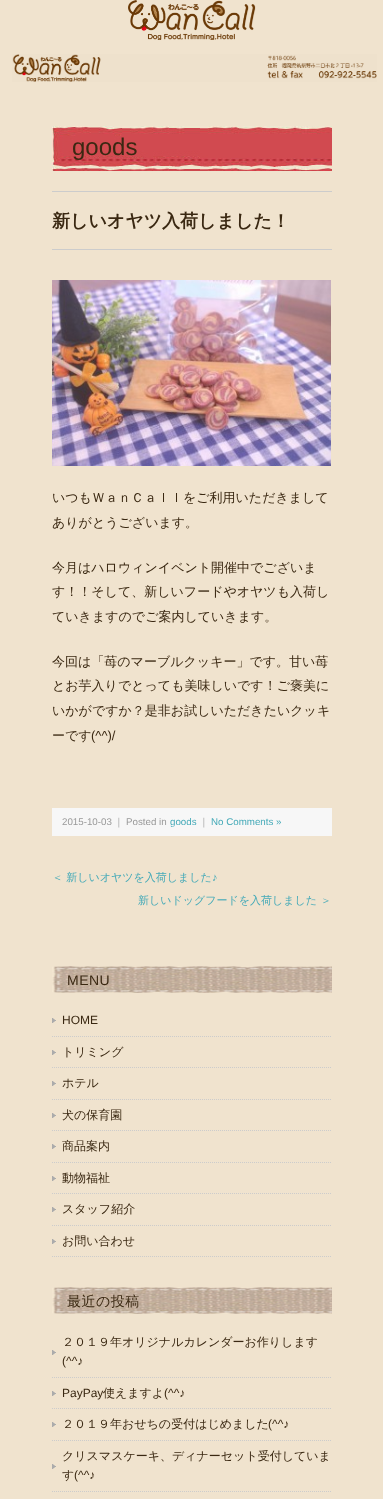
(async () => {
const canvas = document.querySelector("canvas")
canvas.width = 383
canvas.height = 1499
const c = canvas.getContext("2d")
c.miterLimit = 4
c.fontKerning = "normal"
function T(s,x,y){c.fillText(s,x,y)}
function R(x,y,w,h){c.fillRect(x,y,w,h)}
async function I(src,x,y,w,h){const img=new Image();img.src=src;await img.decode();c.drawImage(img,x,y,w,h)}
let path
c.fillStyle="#f0e3ce"
R(0,0,383,1499)
await I("1.png",128,0,128,40)
await I("2.png",12,54,365,28)
await I("3.png",52,126,280,45)
c.font="24px Liberation Sans"
c.fillStyle="#3a2812"
T("goods",72,155)
c.fillStyle="#ccc"
R(52,191,280,1)
R(52,249,280,1)
c.font="bold 18px WenQuanYi Zen Hei"
c.fillStyle="#3a2812"
T("新しいオヤツ入荷しました！",52,227)
await I("4.png",52,280,279,186)
c.font="500 13px WenQuanYi Zen Hei"
T("いつもＷａｎＣａｌｌをご利用いただきまして",52,502)
T("ありがとうございます。",52,527)
T("今月はハロウィンイベント開催中でございま",52,572)
T("す！！そして、新しいフードやオヤツも入荷し",52,596)
T("ていきますのでご案内していきます。",52,621)
T("今回は「苺のマーブルクッキー」です。甘い苺",52,666)
T("とお芋入りでとっても美味しいです！ご褒美に",52,690)
T("いかがですか？是非お試しいただきたいクッキ",52,715)
T("ーです",52,740)
c.font="13px Liberation Sans"
T("(^^)/",91,740)
c.fillStyle="#f7f7f7"
R(52,808,280,28)
c.font="9.75px Liberation Sans"
c.fillStyle="#999"
T("2015-10-03",62,825)
c.font="500 9.75px WenQuanYi Zen Hei"
T("｜",114,825)
c.font="9.75px Liberation Sans"
T("Posted in",126,825)
c.fillStyle="#45aab8"
T("goods",170,825)
c.font="500 9.75px WenQuanYi Zen Hei"
c.fillStyle="#999"
T("｜",199,825)
c.font="9.75px Liberation Sans"
c.fillStyle="#45aab8"
T("No Comments »",211,825)
c.font="500 11px WenQuanYi Zen Hei"
T("＜ 新しいオヤツを入荷しました",52,881)
c.font="11px Liberation Sans"
T("♪",212,881)
c.font="500 11px WenQuanYi Zen Hei"
T("新しいドッグフードを入荷しました ＞",138,904)
await I("5.png",52,966,280,27)
c.letterSpacing="0.5px"
c.font="14px Liberation Sans"
c.fillStyle="#3a2812"
T("MENU",67,985)
path = new Path2D("M52 1036.5h280")
c.strokeStyle="#ccc"
c.setLineDash([1,1])
c.stroke(path)
await I("6.png",52,1018,4,5)
c.letterSpacing="0px"
c.font="12px Liberation Sans"
T("HOME",62,1024)
path = new Path2D("M52 1067.5h280")
c.stroke(path)
await I("6.png",52,1050,4,5)
c.font="500 12px WenQuanYi Zen Hei"
T("トリミング",62,1056)
path = new Path2D("M52 1099.5h280")
c.stroke(path)
await I("6.png",52,1081,4,5)
T("ホテル",62,1087)
path = new Path2D("M52 1130.5h280")
c.stroke(path)
await I("6.png",52,1113,4,5)
T("犬の保育園",62,1119)
path = new Path2D("M52 1162.5h280")
c.stroke(path)
await I("6.png",52,1144,4,5)
T("商品案内",62,1150)
path = new Path2D("M52 1193.5h280")
c.stroke(path)
await I("6.png",52,1176,4,5)
T("動物福祉",62,1182)
path = new Path2D("M52 1225.5h280")
c.stroke(path)
await I("6.png",52,1207,4,5)
T("スタッフ紹介",62,1213)
path = new Path2D("M52 1256.5h280")
c.stroke(path)
await I("6.png",52,1239,4,5)
T("お問い合わせ",62,1245)
await I("5.png",52,1287,280,27)
c.letterSpacing="0.5px"
c.font="500 14px WenQuanYi Zen Hei"
T("最近の投稿",67,1306)
path = new Path2D("M52 1377.5h280")
c.stroke(path)
await I("6.png",52,1350,4,5)
c.letterSpacing="0px"
c.font="500 12px WenQuanYi Zen Hei"
T("２０１９年オリジナルカレンダーお作りします",62,1346)
c.font="12px Liberation Sans"
T("(^^♪",62,1365)
path = new Path2D("M52 1408.5h280")
c.stroke(path)
await I("6.png",52,1391,4,5)
T("PayPay",62,1397)
c.font="500 12px WenQuanYi Zen Hei"
T("使えますよ",103,1397)
c.font="12px Liberation Sans"
T("(^^♪",164,1397)
path = new Path2D("M52 1440.5h280")
c.stroke(path)
await I("6.png",52,1422,4,5)
c.font="500 12px WenQuanYi Zen Hei"
T("２０１９年おせちの受付はじめました",62,1428)
c.font="12px Liberation Sans"
T("(^^♪",268,1428)
path = new Path2D("M52 1491.5h280")
c.stroke(path)
await I("6.png",52,1464,4,5)
c.font="500 12px WenQuanYi Zen Hei"
T("クリスマスケーキ、ディナーセット受付していま",62,1460)
T("す",62,1479)
c.font="12px Liberation Sans"
T("(^^♪",74,1479)
})()
